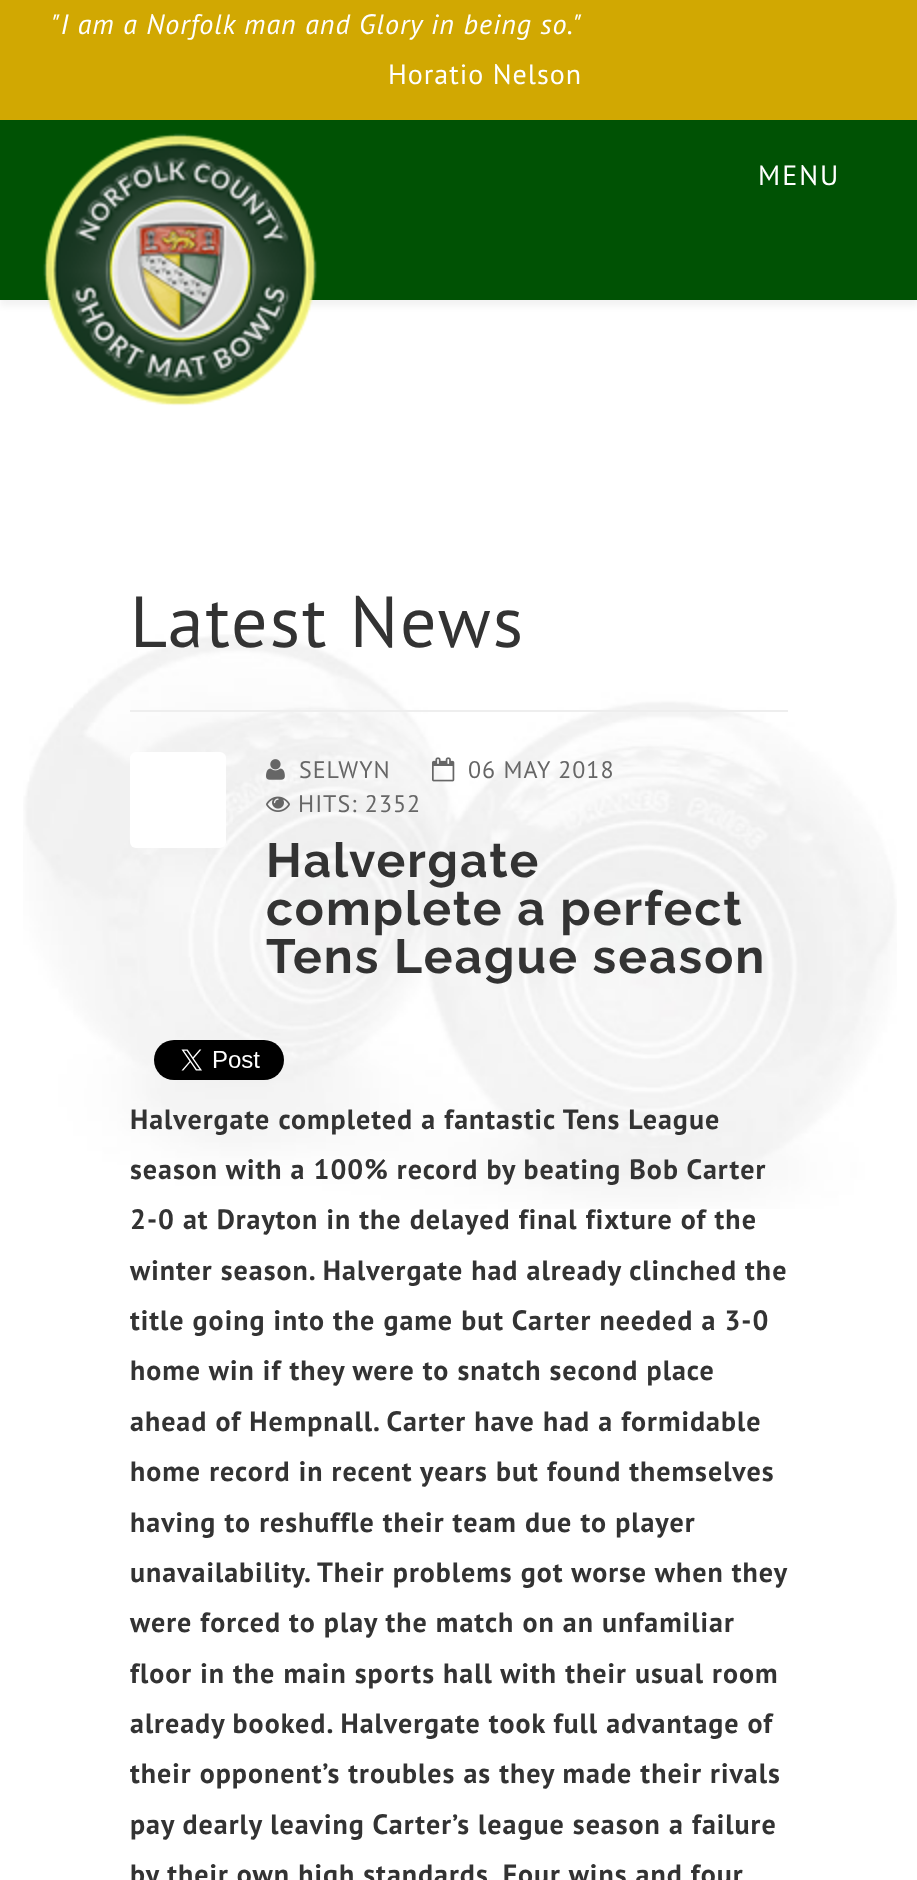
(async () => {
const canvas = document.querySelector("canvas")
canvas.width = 917
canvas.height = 1880
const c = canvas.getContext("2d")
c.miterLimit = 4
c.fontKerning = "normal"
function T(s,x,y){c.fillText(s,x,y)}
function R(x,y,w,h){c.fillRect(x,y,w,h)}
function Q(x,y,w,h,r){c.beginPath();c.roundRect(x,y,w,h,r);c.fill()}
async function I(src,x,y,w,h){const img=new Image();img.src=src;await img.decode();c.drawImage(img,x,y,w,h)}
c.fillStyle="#fff"
R(0,0,917,1880)
c.fillStyle="#d1a802"
R(0,0,917,120)
c.letterSpacing="1px"
c.font="italic 28px PT Sans"
c.fillStyle="#fff"
T("\"I am a Norfolk man and Glory in being so.\"",51,34)
c.font="28px PT Sans"
T("Horatio Nelson",388,84)
c.fillStyle="#0000000d"
c.filter="blur(3px)"
c.beginPath()
c.rect(0,126,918,180)
c.fill()
c.filter="none"
c.fillStyle="#005204"
R(0,120,917,180)
await I("1.png",43,133,274,273)
c.letterSpacing="2px"
c.fillStyle="#fff"
T("MENU",758,185)
await I("2.png",23,634,874,575)
c.fillStyle="#eee"
R(130,710,658,2)
c.font="72px PT Sans"
c.fillStyle="#333"
T("Latest News",130,647)
c.fillStyle="#fff"
Q(130,752,96,96,6)
await I("3.png",266,759,19,21)
c.letterSpacing="1px"
c.font="24px PT Sans"
c.fillStyle="#666"
T("SELWYN",299,778)
await I("4.png",432,757,23,25)
T("06 MAY 2018",468,778)
await I("5.png",266,796,24,16)
T("HITS: 2352",298,812)
c.letterSpacing="2px"
c.font="bold 48px Raleway"
c.fillStyle="#333"
T("Halvergate",266,877)
T("complete a perfect",266,925)
T("Tens League season",266,973)
await I("6.png",154,1040,130,40)
c.letterSpacing="1px"
c.font="bold 28px PT Sans"
T("Halvergate completed a fantastic Tens League",130,1129)
T("season with a 100% record by beating Bob Carter",130,1179)
T("2-0 at Drayton in the delayed final fixture of the",130,1229)
T("winter season. Halvergate had already clinched the",130,1280)
T("title going into the game but Carter needed a 3-0",130,1330)
T("home win if they were to snatch second place",130,1380)
T("ahead of Hempnall. Carter have had a formidable",130,1431)
T("home record in recent years but found themselves",130,1481)
T("having to reshuffle their team due to player",130,1532)
T("unavailability. Their problems got worse when they",130,1582)
T("were forced to play the match on an unfamiliar",130,1632)
T("floor in the main sports hall with their usual room",130,1683)
T("already booked. Halvergate took full advantage of",130,1733)
T("their opponent’s troubles as they made their rivals",130,1783)
T("pay dearly leaving Carter’s league season a failure",130,1834)
T("by their own high standards. Four wins and four",130,1884)
})()
